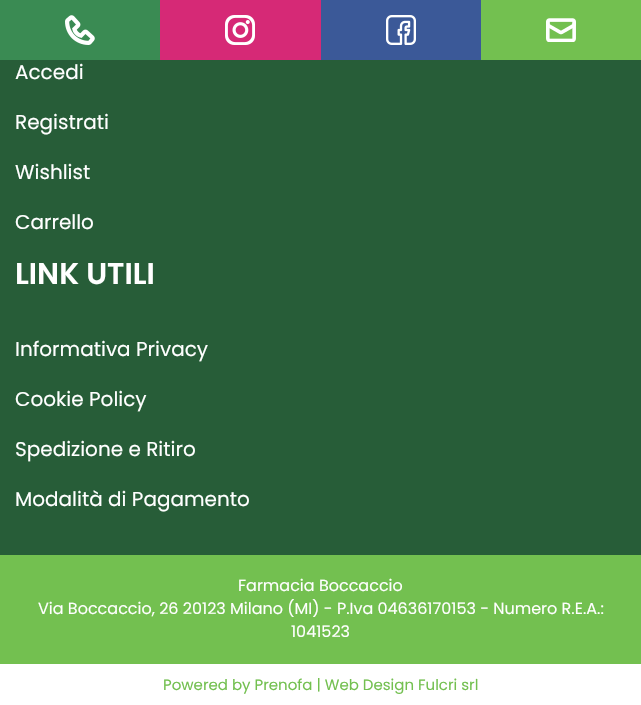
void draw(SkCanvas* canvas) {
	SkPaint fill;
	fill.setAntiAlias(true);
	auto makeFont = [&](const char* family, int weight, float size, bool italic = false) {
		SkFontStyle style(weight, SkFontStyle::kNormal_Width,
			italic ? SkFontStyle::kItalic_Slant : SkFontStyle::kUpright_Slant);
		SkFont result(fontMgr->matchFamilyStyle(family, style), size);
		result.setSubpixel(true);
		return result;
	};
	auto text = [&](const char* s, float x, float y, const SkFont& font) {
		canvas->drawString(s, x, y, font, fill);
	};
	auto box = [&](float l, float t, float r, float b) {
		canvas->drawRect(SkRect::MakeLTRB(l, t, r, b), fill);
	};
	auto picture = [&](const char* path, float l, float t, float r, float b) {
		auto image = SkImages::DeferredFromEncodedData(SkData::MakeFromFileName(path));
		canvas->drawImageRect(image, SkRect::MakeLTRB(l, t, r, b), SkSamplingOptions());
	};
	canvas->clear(0xFFFFFFFF);
	fill.setColor(0xFF3A8B53);
	box(0, 0, 160, 60);
	picture("image0.png", 65, 15, 95, 45);
	fill.setColor(0xFFD62976);
	box(160, 0, 321, 60);
	picture("image1.png", 225, 15, 255, 45);
	fill.setColor(0xFF3B5998);
	box(321, 0, 481, 60);
	picture("image2.png", 386, 15, 416, 45);
	fill.setColor(0xFF73C050);
	box(481, 0, 641, 60);
	picture("image3.png", 546, 18, 576, 42);
	fill.setColor(0xFF275D38);
	box(0, 60, 641, 555);
	fill.setColor(0xFF73C050);
	box(0, 555, 641, 664);
	auto font1 = makeFont("Poppins", 400, 20);
	fill.setColor(0xFFFFFFFF);
	text("Accedi", 15, 79, font1);
	text("Registrati", 15, 129, font1);
	text("Wishlist", 15, 179, font1);
	text("Carrello", 15, 229, font1);
	auto font2 = makeFont("Poppins", 600, 30);
	text("LINK UTILI", 15, 284, font2);
	text("Informativa Privacy", 15, 356, font1);
	text("Cookie Policy", 15, 406, font1);
	text("Spedizione e Ritiro", 15, 456, font1);
	text("Modalità di Pagamento", 15, 506, font1);
	auto font3 = makeFont("Poppins", 400, 16);
	text("Farmacia Boccaccio", 238, 591, font3);
	text("Via Boccaccio, 26 20123 Milano (MI) - P.Iva 04636170153 - Numero R.E.A.:", 38, 614, font3);
	text("1041523", 291, 637, font3);
	auto font4 = makeFont("Poppins", 400, 15);
	fill.setColor(0xFF73C050);
	text("Powered by Prenofa | Web Design Fulcri srl", 163, 690, font4);
}
